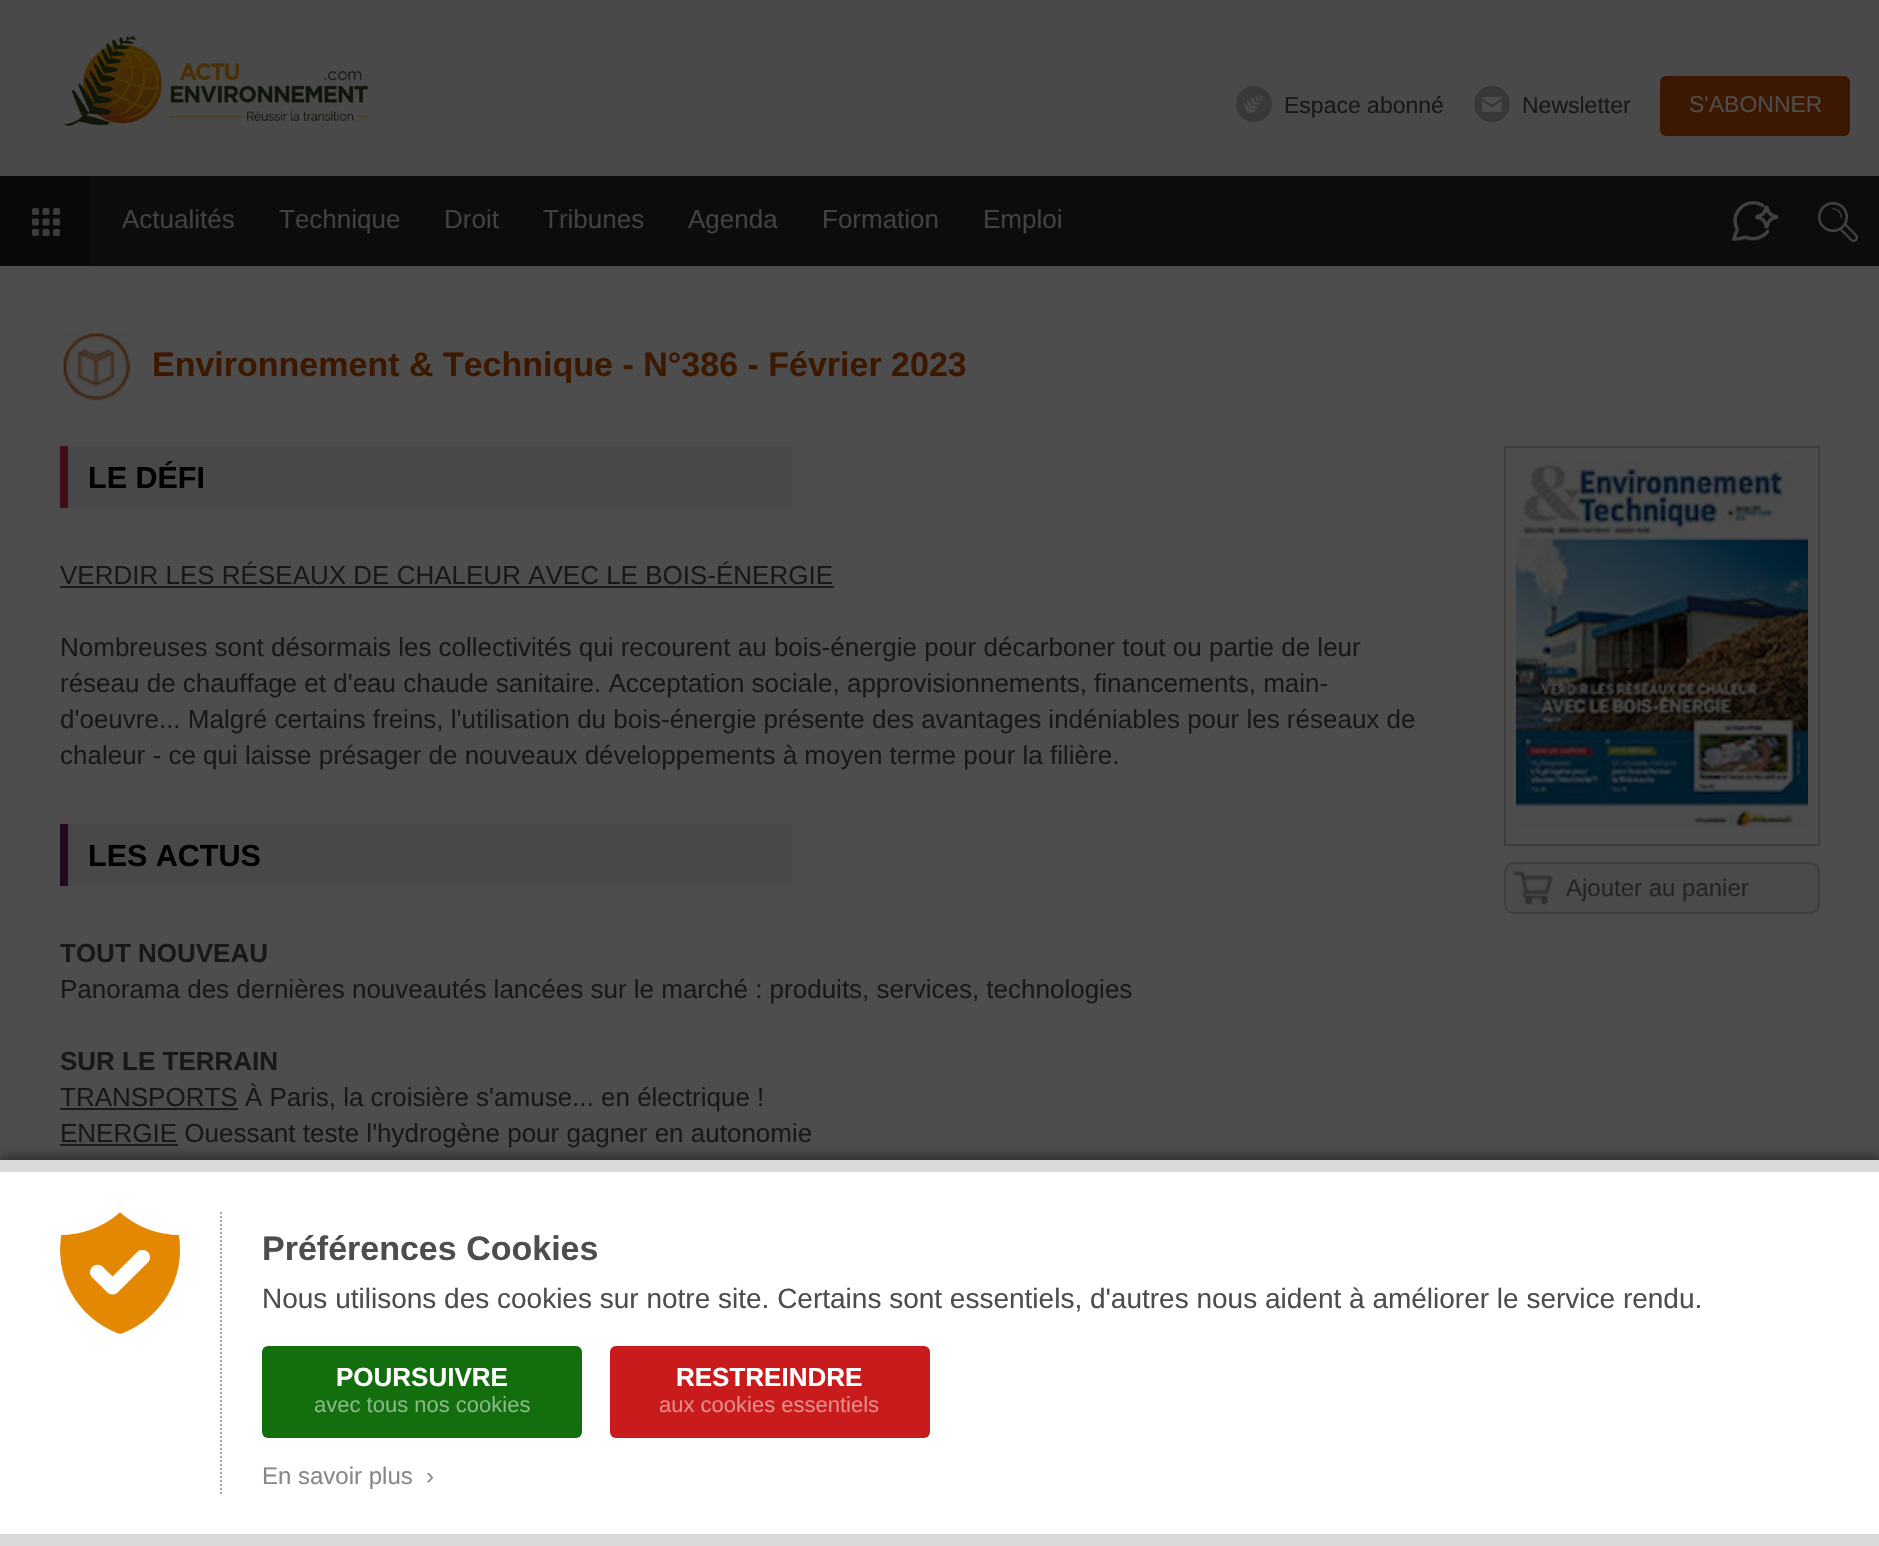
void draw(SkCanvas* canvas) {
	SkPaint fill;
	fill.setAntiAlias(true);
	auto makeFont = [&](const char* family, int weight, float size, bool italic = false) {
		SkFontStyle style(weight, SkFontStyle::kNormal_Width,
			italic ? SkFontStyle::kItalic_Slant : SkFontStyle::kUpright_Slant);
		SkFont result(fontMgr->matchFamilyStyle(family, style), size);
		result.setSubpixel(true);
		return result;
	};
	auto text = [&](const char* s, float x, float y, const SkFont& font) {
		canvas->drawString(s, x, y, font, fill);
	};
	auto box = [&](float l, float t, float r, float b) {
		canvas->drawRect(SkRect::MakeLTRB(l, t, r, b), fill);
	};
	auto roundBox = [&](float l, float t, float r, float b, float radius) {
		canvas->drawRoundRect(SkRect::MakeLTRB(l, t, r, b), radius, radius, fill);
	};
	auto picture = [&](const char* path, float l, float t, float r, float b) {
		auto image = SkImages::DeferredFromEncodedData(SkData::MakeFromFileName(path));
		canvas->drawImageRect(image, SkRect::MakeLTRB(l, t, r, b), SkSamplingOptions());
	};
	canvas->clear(0xFF4D4D4D);
	fill.setColor(0xFF494949);
	box(0, 0, 1879, 176);
	picture("image0.png", 64, 36, 368, 126);
	fill.setColor(0xFF383838);
	canvas->drawCircle(1254, 104, 18, fill);
	picture("image1.png", 1244, 95, 1264, 113);
	canvas->drawCircle(1492, 104, 18, fill);
	picture("image2.png", 1482, 97, 1502, 112);
	fill.setColor(0xFF3C1800);
	roundBox(1660, 76, 1850, 136, 6);
	fill.setColor(0xFF0C0C0C);
	box(90, 176, 1879, 266);
	fill.setColor(0xFF080808);
	box(0, 176, 90, 266);
	picture("image3.png", 32, 208, 60, 236);
	picture("image4.png", 1732, 201, 1778, 241);
	picture("image5.png", 1818, 202, 1858, 242);
	picture("image6.png", 63, 333, 131, 401);
	fill.setColor(0xFF484848);
	box(68, 446, 792, 508);
	fill.setColor(0xFF400E14);
	box(60, 446, 68, 508);
	fill.setColor(0xFF1A1A1A);
	box(60, 586, 834, 588);
	fill.setColor(0xFF484848);
	box(68, 824, 792, 886);
	fill.setColor(0xFF23081F);
	box(60, 824, 68, 886);
	fill.setColor(0xFF1A1A1A);
	box(60, 1108, 238, 1110);
	box(60, 1144, 178, 1146);
	fill.setStyle(SkPaint::kStroke_Style);
	fill.setStrokeWidth(2);
	fill.setColor(0xFF3E3E3E);
	canvas->drawRect(SkRect::MakeLTRB(1505, 447, 1819, 845), fill);
	picture("image7.png", 1516, 458, 1808, 829);
	fill.setStyle(SkPaint::kFill_Style);
	fill.setColor(0xFF4A4A4A);
	roundBox(1504, 862, 1820, 914, 10);
	picture("image8.png", 1513, 871, 1553, 905);
	fill.setStyle(SkPaint::kStroke_Style);
	fill.setColor(0xFF3E3E3E);
	canvas->drawRoundRect(SkRect::MakeLTRB(1505, 863, 1819, 913), 9, 9, fill);
	fill.setStyle(SkPaint::kFill_Style);
	fill.setColor(0x4D000000);
	fill.setMaskFilter(SkMaskFilter::MakeBlur(kNormal_SkBlurStyle, 4));
	canvas->drawRect(SkRect::MakeLTRB(0, 1154, 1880, 1540), fill);
	fill.setMaskFilter(nullptr);
	fill.setColor(0xFFFFFFFF);
	box(0, 1172, 1879, 1534);
	fill.setColor(0xFFDADADA);
	box(0, 1160, 1879, 1172);
	box(0, 1534, 1879, 1546);
	picture("image9.png", 60, 1212, 180, 1334);
	fill.setStyle(SkPaint::kStroke_Style);
	fill.setColor(0xFFA8A8A8);
	fill.setPathEffect(SkDashPathEffect::Make({{2, 2}}, 0));
	canvas->drawPath(SkPathBuilder().moveTo(221, 1212).lineTo(221, 1494).detach(), fill);
	fill.setPathEffect(nullptr);
	fill.setStyle(SkPaint::kFill_Style);
	fill.setColor(0xFF136F0E);
	roundBox(262, 1346, 582, 1438, 6);
	fill.setColor(0xFFC91B1B);
	roundBox(610, 1346, 930, 1438, 6);
	auto font1 = makeFont("Liberation Sans", 400, 23);
	fill.setColor(0xFF181818);
	text("Espace abonné", 1284, 113, font1);
	text("Newsletter", 1522, 113, font1);
	fill.setColor(0xFF4D4D4D);
	text("S'ABONNER", 1689, 112, font1);
	auto font2 = makeFont("Liberation Sans", 400, 26);
	fill.setColor(0xFF414141);
	text("Actualités", 122, 228, font2);
	text("Technique", 279, 228, font2);
	text("Droit", 444, 228, font2);
	text("Tribunes", 543, 228, font2);
	text("Agenda", 688, 228, font2);
	text("Formation", 822, 228, font2);
	text("Emploi", 983, 228, font2);
	auto font3 = makeFont("Liberation Sans", 700, 34);
	fill.setColor(0xFF3C1800);
	text("Environnement & Technique - N°386 - Février 2023", 152, 376, font3);
	auto font4 = makeFont("Liberation Sans", 700, 30.5f);
	fill.setColor(0xFF000000);
	text("LE DÉFI", 88, 488, font4);
	fill.setColor(0xFF181818);
	text("VERDIR LES RÉSEAUX DE CHALEUR AVEC LE BOIS-ÉNERGIE", 60, 584, font2);
	text("Nombreuses sont désormais les collectivités qui recourent au bois-énergie pour décarboner tout ou partie de leur", 60, 656, font2);
	text("réseau de chauffage et d'eau chaude sanitaire. Acceptation sociale, approvisionnements, financements, main-", 60, 692, font2);
	text("d'oeuvre... Malgré certains freins, l'utilisation du bois-énergie présente des avantages indéniables pour les réseaux de", 60, 728, font2);
	text("chaleur - ce qui laisse présager de nouveaux développements à moyen terme pour la filière.", 60, 764, font2);
	fill.setColor(0xFF000000);
	text("LES ACTUS", 88, 866, font4);
	auto font5 = makeFont("Liberation Sans", 700, 26);
	fill.setColor(0xFF181818);
	text("TOUT NOUVEAU", 60, 962, font5);
	text("Panorama des dernières nouveautés lancées sur le marché : produits, services, technologies", 60, 998, font2);
	text("SUR LE TERRAIN", 60, 1070, font5);
	text("TRANSPORTS À Paris, la croisière s'amuse... en électrique !", 60, 1106, font2);
	text("ENERGIE Ouessant teste l'hydrogène pour gagner en autonomie", 60, 1142, font2);
	auto font6 = makeFont("Liberation Sans", 400, 24);
	fill.setColor(0xFF242424);
	text("Ajouter au panier", 1566, 896, font6);
	fill.setColor(0xFF4D4D4D);
	text("Préférences Cookies", 262, 1260, font3);
	auto font7 = makeFont("Liberation Sans", 400, 28);
	text("Nous utilisons des cookies sur notre site. Certains sont essentiels, d'autres nous aident à améliorer le service rendu.", 262, 1308, font7);
	fill.setColor(0xFFFFFFFF);
	text("POURSUIVRE", 336, 1386, font5);
	auto font8 = makeFont("Liberation Sans", 400, 22);
	fill.setColor(0xFF89B787);
	text("avec tous nos cookies", 314, 1412, font8);
	fill.setColor(0xFFFFFFFF);
	text("RESTREINDRE", 676, 1386, font5);
	fill.setColor(0xFFE48D8D);
	text("aux cookies essentiels", 659, 1412, font8);
	fill.setColor(0xFF888888);
	text("En savoir plus  ›", 262, 1484, font6);
}
